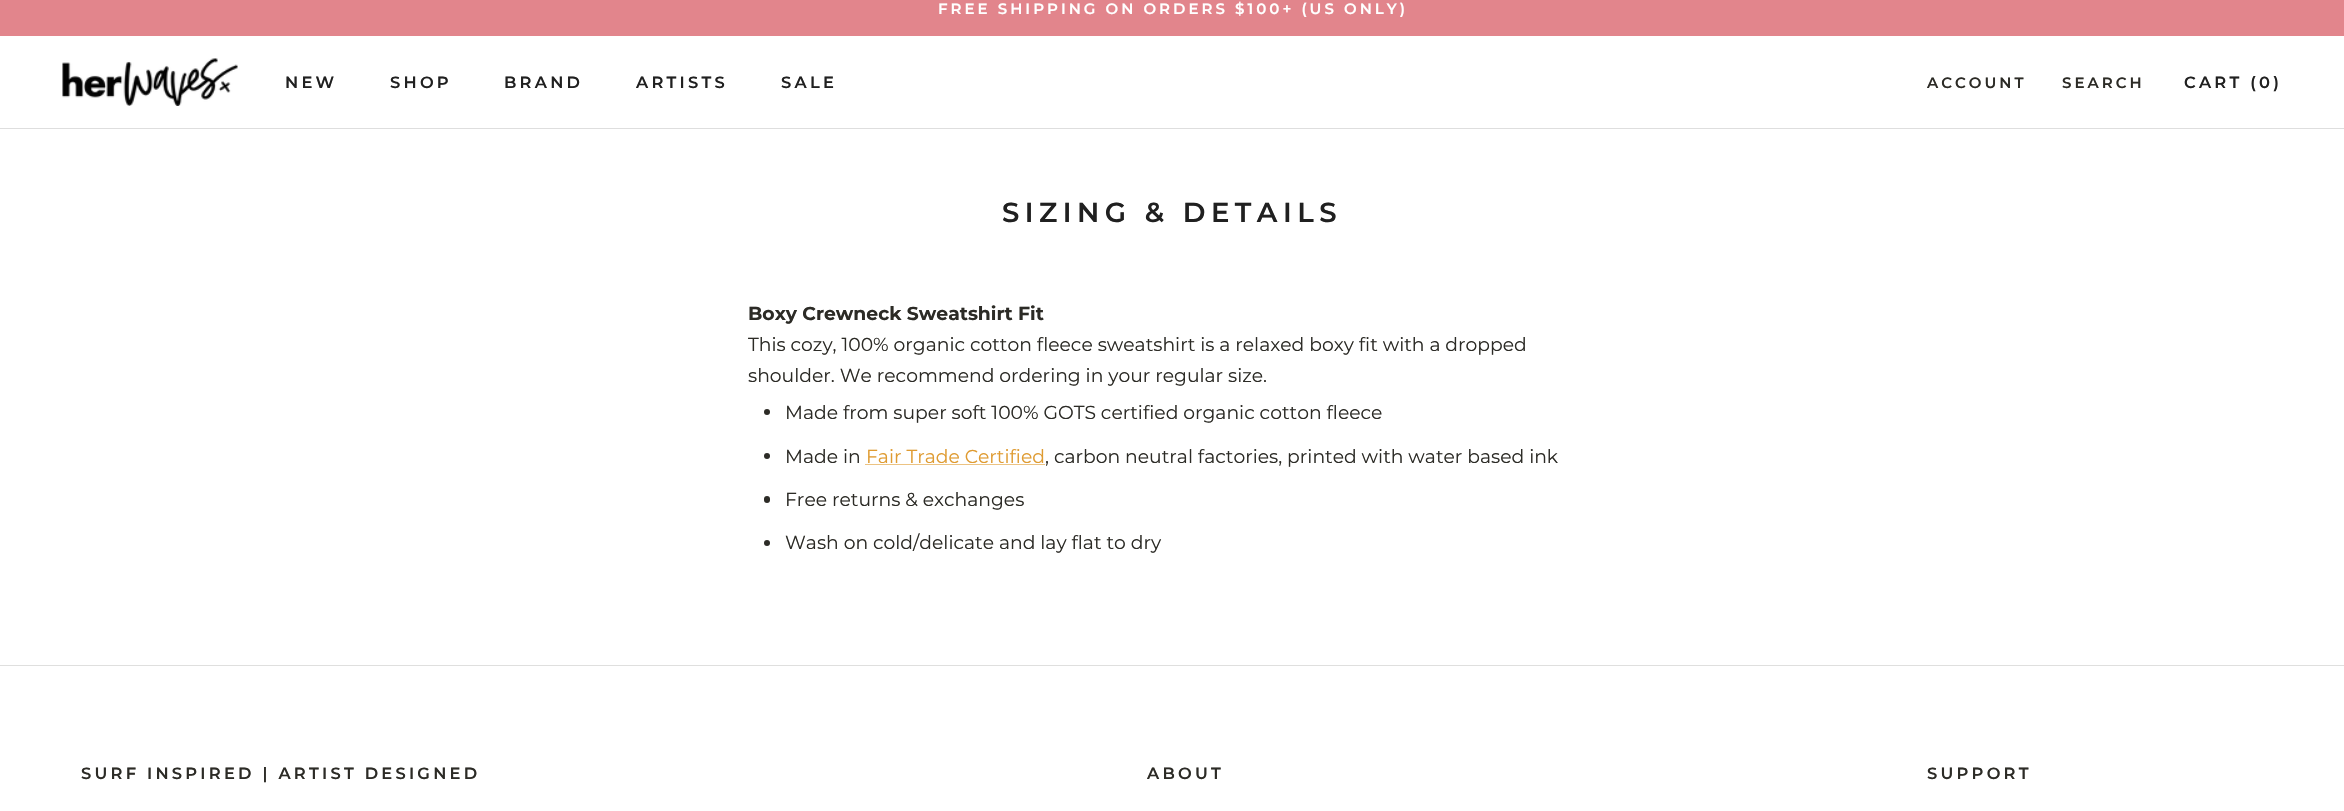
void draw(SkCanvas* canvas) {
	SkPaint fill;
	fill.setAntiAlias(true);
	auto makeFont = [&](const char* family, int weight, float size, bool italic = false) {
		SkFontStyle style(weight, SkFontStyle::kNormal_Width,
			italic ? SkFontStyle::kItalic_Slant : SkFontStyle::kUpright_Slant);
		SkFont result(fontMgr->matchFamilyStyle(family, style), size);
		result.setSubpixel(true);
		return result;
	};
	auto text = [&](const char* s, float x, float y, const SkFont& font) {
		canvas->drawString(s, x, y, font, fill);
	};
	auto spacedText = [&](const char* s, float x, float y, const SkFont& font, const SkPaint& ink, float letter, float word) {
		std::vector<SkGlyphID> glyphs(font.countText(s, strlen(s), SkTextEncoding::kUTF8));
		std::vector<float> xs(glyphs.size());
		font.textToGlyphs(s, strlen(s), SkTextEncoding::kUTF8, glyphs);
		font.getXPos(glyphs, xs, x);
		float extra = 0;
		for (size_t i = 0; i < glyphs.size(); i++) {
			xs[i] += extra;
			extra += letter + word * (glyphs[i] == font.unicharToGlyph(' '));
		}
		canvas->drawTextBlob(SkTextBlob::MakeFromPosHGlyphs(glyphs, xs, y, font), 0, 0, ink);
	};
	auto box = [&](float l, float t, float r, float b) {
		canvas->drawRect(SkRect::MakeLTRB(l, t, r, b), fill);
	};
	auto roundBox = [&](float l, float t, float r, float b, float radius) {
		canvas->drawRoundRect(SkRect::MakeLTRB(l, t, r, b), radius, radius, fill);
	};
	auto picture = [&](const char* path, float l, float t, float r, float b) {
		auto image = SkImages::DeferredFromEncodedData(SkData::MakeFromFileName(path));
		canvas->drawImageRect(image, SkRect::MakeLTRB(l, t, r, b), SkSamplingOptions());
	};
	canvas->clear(0xFFFFFFFF);
	fill.setColor(0xFFE2858C);
	box(0, 0, 2344, 36);
	fill.setColor(0xFFDEDEDE);
	box(0, 128, 2344, 129);
	picture("image0.png", 62, 58, 238, 106);
	fill.setColor(0xFF2C2B26);
	canvas->drawCircle(767, 412, 3, fill);
	canvas->drawCircle(767, 456, 3, fill);
	fill.setColor(0xFFECC383);
	box(865, 464, 1045, 465);
	fill.setColor(0xFF2C2B26);
	roundBox(764, 496, 770, 503, 3);
	canvas->drawCircle(767, 543, 3, fill);
	fill.setColor(0xFFDFDFDE);
	box(0, 665, 2344, 666);
	auto font1 = makeFont("Montserrat", 600, 15);
	fill.setColor(0xFFFFFFFF);
	spacedText("FREE SHIPPING ON ORDERS $100+ (US ONLY)", 938, 14, font1, fill, 3, 0);
	auto font2 = makeFont("Montserrat", 600, 16.25f);
	fill.setColor(0xFF202020);
	spacedText("NEW", 285, 88, font2, fill, 3.25f, 0);
	spacedText("SHOP", 390, 88, font2, fill, 3.25f, 0);
	spacedText("BRAND", 504, 88, font2, fill, 3.25f, 0);
	spacedText("ARTISTS", 636, 88, font2, fill, 3.25f, 0);
	spacedText("SALE", 781, 88, font2, fill, 3.25f, 0);
	fill.setColor(0xFF2C2B26);
	spacedText("ACCOUNT", 1927, 88, font1, fill, 3, 0);
	spacedText("SEARCH", 2062, 88, font1, fill, 3, 0);
	fill.setColor(0xFF202020);
	spacedText("CART (0)", 2184, 88, font2, fill, 3.25f, 0);
	auto font3 = makeFont("Montserrat", 600, 27.5f);
	spacedText("SIZING & DETAILS", 1002, 222, font3, fill, 5.5f, 0);
	auto font4 = makeFont("Montserrat", 700, 18.75f);
	fill.setColor(0xFF2C2B26);
	text("Boxy Crewneck Sweatshirt Fit", 748, 320, font4);
	auto font5 = makeFont("Montserrat", 400, 18.75f);
	text("This cozy, 100% organic cotton fleece sweatshirt is a relaxed boxy fit with a dropped", 748, 351, font5);
	text("shoulder. We recommend ordering in your regular size.", 748, 382, font5);
	text("Made from super soft 100% GOTS certified organic cotton fleece", 785, 419, font5);
	text("Made in", 785, 463, font5);
	fill.setColor(0xFFDF9B31);
	text("Fair Trade Certified", 866, 463, font5);
	fill.setColor(0xFF2C2B26);
	text(", carbon neutral factories, printed with water based ink", 1045, 463, font5);
	text("Free returns & exchanges", 785, 506, font5);
	text("Wash on cold/delicate and lay flat to dry", 785, 549, font5);
	spacedText("SURF INSPIRED | ARTIST DESIGNED", 81, 779, font2, fill, 3.25f, 0);
	spacedText("ABOUT", 1147, 779, font2, fill, 3.25f, 0);
	spacedText("SUPPORT", 1927, 779, font2, fill, 3.25f, 0);
}
